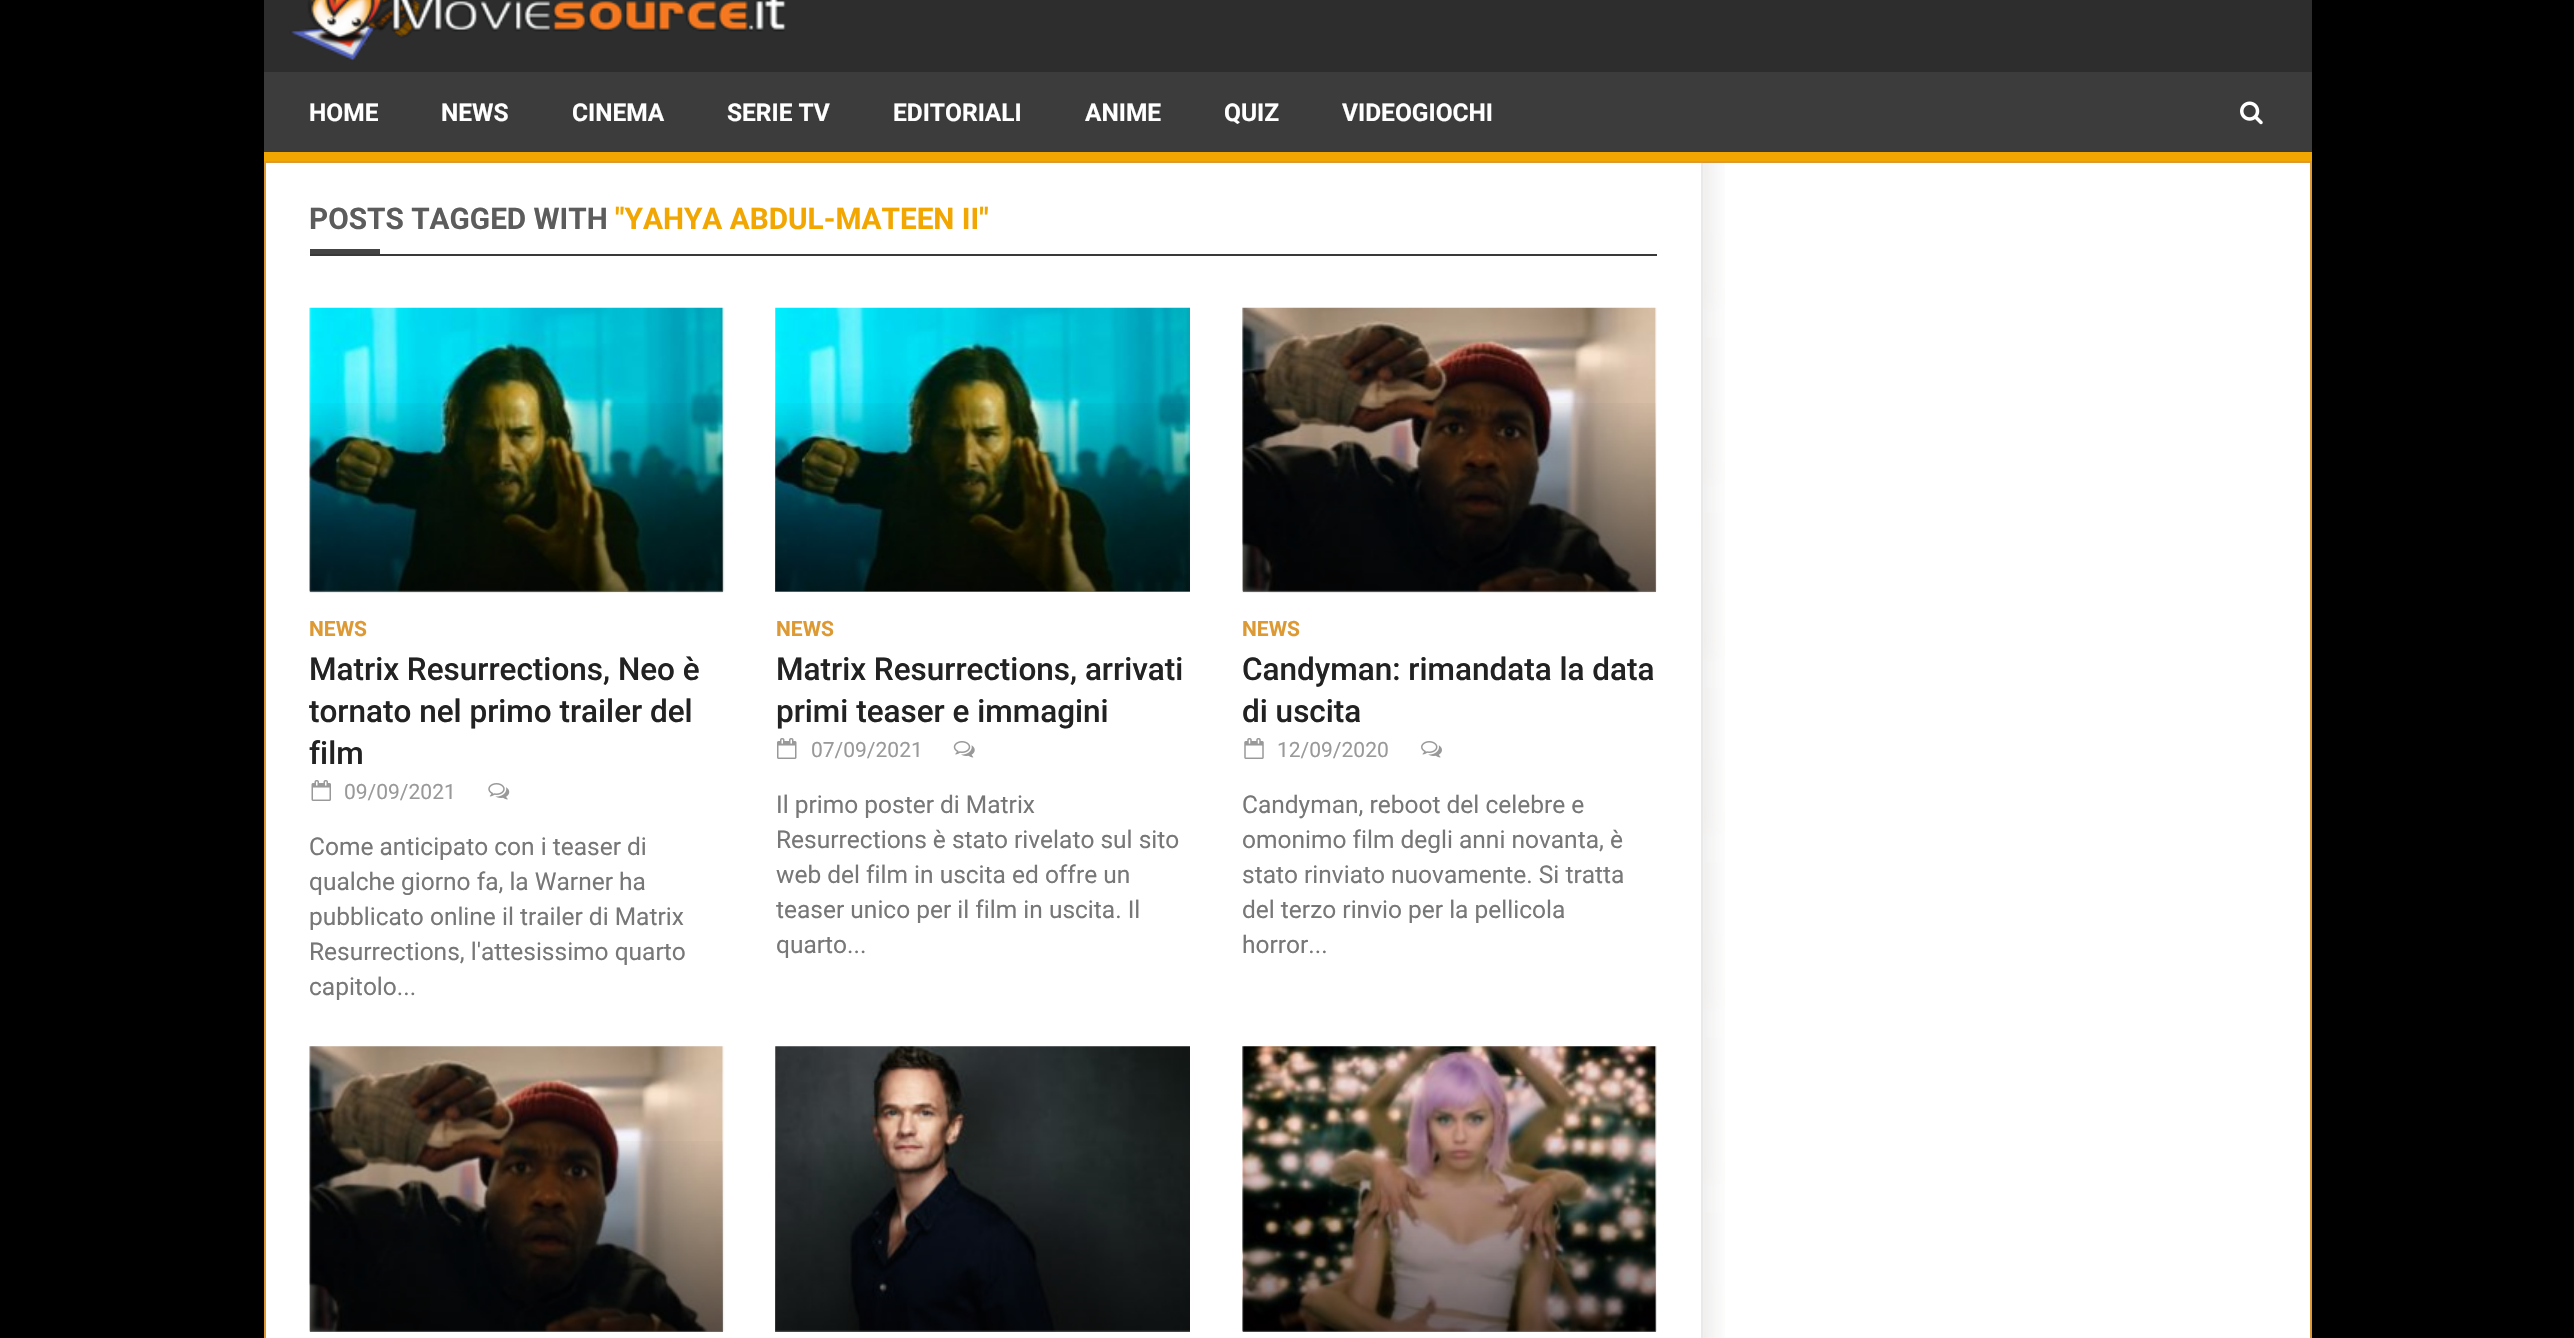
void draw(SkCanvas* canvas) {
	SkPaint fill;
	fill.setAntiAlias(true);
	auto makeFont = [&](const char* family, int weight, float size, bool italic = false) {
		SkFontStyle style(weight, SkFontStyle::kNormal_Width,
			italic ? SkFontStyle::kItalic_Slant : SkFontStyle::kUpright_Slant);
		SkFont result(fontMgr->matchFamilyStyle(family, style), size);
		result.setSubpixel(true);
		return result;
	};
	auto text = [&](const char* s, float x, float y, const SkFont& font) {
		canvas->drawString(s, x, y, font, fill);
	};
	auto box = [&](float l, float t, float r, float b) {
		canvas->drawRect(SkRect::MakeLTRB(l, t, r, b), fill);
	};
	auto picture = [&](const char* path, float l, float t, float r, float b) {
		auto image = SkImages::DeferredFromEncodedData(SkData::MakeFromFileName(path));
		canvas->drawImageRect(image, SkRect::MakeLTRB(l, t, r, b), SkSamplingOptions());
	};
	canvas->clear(0xFF000000);
	fill.setColor(0xFF2D2D2D);
	box(264, 0, 2312, 72);
	picture("image0.png", 289, 0, 786, 61);
	fill.setColor(0xFF3C3C3C);
	box(264, 72, 2312, 152);
	fill.setColor(0xFFF1A602);
	box(264, 152, 2312, 161);
	picture("image1.png", 2240, 101, 2263, 125);
	fill.setColor(0xFFFFFFFF);
	canvas->drawRect(SkRect::MakeLTRB(265, 162, 2311, 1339), fill);
	fill.setStyle(SkPaint::kStroke_Style);
	fill.setStrokeWidth(2);
	fill.setColor(0xFFDD9933);
	canvas->drawRect(SkRect::MakeLTRB(265, 162, 2311, 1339), fill);
	fill.setStyle(SkPaint::kFill_Style);
	fill.setColor(0xFF393939);
	box(310, 254, 1657, 256);
	fill.setColor(0xFF444444);
	box(310, 249, 380, 254);
	picture("image2.png", 309, 307, 725, 593);
	{
		const SkColor colors[] = {0x00000000, 0x80000000};
		const float stops[] = {0, 1};
		const SkPoint ends[] = {{516, 394}, {516, 592}};
		fill.setShader(SkGradientShader::MakeLinear(ends, colors, stops, 2, SkTileMode::kClamp));
		fill.setAlpha(255);
	}
	box(310, 403, 723, 592);
	picture("image3.png", 311, 780, 331, 801);
	picture("image4.png", 488, 783, 510, 800);
	picture("image5.png", 775, 307, 1190, 592);
	{
		const SkColor colors[] = {0x00000000, 0x80000000};
		const float stops[] = {0, 1};
		const SkPoint ends[] = {{983, 394}, {983, 592}};
		fill.setShader(SkGradientShader::MakeLinear(ends, colors, stops, 2, SkTileMode::kClamp));
		fill.setAlpha(255);
	}
	box(775, 403, 1190, 592);
	picture("image6.png", 777, 738, 797, 759);
	picture("image7.png", 953, 741, 975, 758);
	picture("image8.png", 1242, 307, 1657, 593);
	{
		const SkColor colors[] = {0x00000000, 0x80000000};
		const float stops[] = {0, 1};
		const SkPoint ends[] = {{1449, 394}, {1449, 592}};
		fill.setShader(SkGradientShader::MakeLinear(ends, colors, stops, 2, SkTileMode::kClamp));
		fill.setAlpha(255);
	}
	box(1243, 403, 1656, 592);
	picture("image9.png", 1244, 738, 1264, 759);
	picture("image10.png", 1421, 741, 1442, 758);
	picture("image11.png", 309, 1046, 725, 1332);
	{
		const SkColor colors[] = {0x00000000, 0x80000000};
		const float stops[] = {0, 1};
		const SkPoint ends[] = {{516, 1132}, {516, 1332}};
		fill.setShader(SkGradientShader::MakeLinear(ends, colors, stops, 2, SkTileMode::kClamp));
		fill.setAlpha(255);
	}
	box(310, 1141, 723, 1332);
	picture("image12.png", 775, 1046, 1190, 1332);
	{
		const SkColor colors[] = {0x00000000, 0x80000000};
		const float stops[] = {0, 1};
		const SkPoint ends[] = {{983, 1132}, {983, 1332}};
		fill.setShader(SkGradientShader::MakeLinear(ends, colors, stops, 2, SkTileMode::kClamp));
		fill.setAlpha(255);
	}
	box(775, 1141, 1190, 1332);
	picture("image13.png", 1242, 1046, 1657, 1332);
	{
		const SkColor colors[] = {0x00000000, 0x80000000};
		const float stops[] = {0, 1};
		const SkPoint ends[] = {{1449, 1132}, {1449, 1332}};
		fill.setShader(SkGradientShader::MakeLinear(ends, colors, stops, 2, SkTileMode::kClamp));
		fill.setAlpha(255);
	}
	box(1243, 1141, 1656, 1332);
	picture("image14.png", 1703, 162, 1725, 1338);
	fill.setShader(nullptr);
	fill.setColor(0xFFE9E9E9);
	box(1701, 163, 1703, 1338);
	auto font1 = makeFont("Roboto", 700, 24.5f);
	fill.setColor(0xFFFFFFFF);
	text("HOME", 309, 121, font1);
	text("NEWS", 441, 121, font1);
	text("CINEMA", 572, 121, font1);
	text("SERIE TV", 727, 121, font1);
	text("EDITORIALI", 893, 121, font1);
	text("ANIME", 1085, 121, font1);
	text("QUIZ", 1224, 121, font1);
	text("VIDEOGIOCHI", 1342, 121, font1);
	auto font2 = makeFont("Roboto", 700, 29.75f);
	fill.setColor(0xFF5C5C5C);
	text("POSTS TAGGED WITH", 309, 229, font2);
	fill.setColor(0xFFF1A602);
	text("\"YAHYA ABDUL-MATEEN II\"", 615, 229, font2);
	auto font3 = makeFont("Roboto", 700, 21);
	fill.setColor(0xFFDD9933);
	text("NEWS", 309, 636, font3);
	auto font4 = makeFont("Roboto", 500, 31.5f);
	fill.setColor(0xFF222222);
	text("Matrix Resurrections, Neo è", 309, 680, font4);
	text("tornato nel primo trailer del", 309, 722, font4);
	text("film", 309, 764, font4);
	auto font5 = makeFont("Roboto", 400, 21);
	fill.setColor(0xFF999999);
	text("09/09/2021", 344, 799, font5);
	auto font6 = makeFont("Roboto", 400, 24.5f);
	fill.setColor(0xFF777777);
	text("Come anticipato con i teaser di", 309, 855, font6);
	text("qualche giorno fa, la Warner ha", 309, 890, font6);
	text("pubblicato online il trailer di Matrix", 309, 925, font6);
	text("Resurrections, l'attesissimo quarto", 309, 960, font6);
	text("capitolo...", 309, 995, font6);
	fill.setColor(0xFFDD9933);
	text("NEWS", 776, 636, font3);
	fill.setColor(0xFF222222);
	text("Matrix Resurrections, arrivati", 776, 680, font4);
	text("primi teaser e immagini", 776, 722, font4);
	fill.setColor(0xFF999999);
	text("07/09/2021", 811, 757, font5);
	fill.setColor(0xFF777777);
	text("Il primo poster di Matrix", 776, 813, font6);
	text("Resurrections è stato rivelato sul sito", 776, 848, font6);
	text("web del film in uscita ed offre un", 776, 883, font6);
	text("teaser unico per il film in uscita. Il", 776, 918, font6);
	text("quarto...", 776, 953, font6);
	fill.setColor(0xFFDD9933);
	text("NEWS", 1242, 636, font3);
	fill.setColor(0xFF222222);
	text("Candyman: rimandata la data", 1242, 680, font4);
	text("di uscita", 1242, 722, font4);
	fill.setColor(0xFF999999);
	text("12/09/2020", 1277, 757, font5);
	fill.setColor(0xFF777777);
	text("Candyman, reboot del celebre e", 1242, 813, font6);
	text("omonimo film degli anni novanta, è", 1242, 848, font6);
	text("stato rinviato nuovamente. Si tratta", 1242, 883, font6);
	text("del terzo rinvio per la pellicola", 1242, 918, font6);
	text("horror...", 1242, 953, font6);
}
